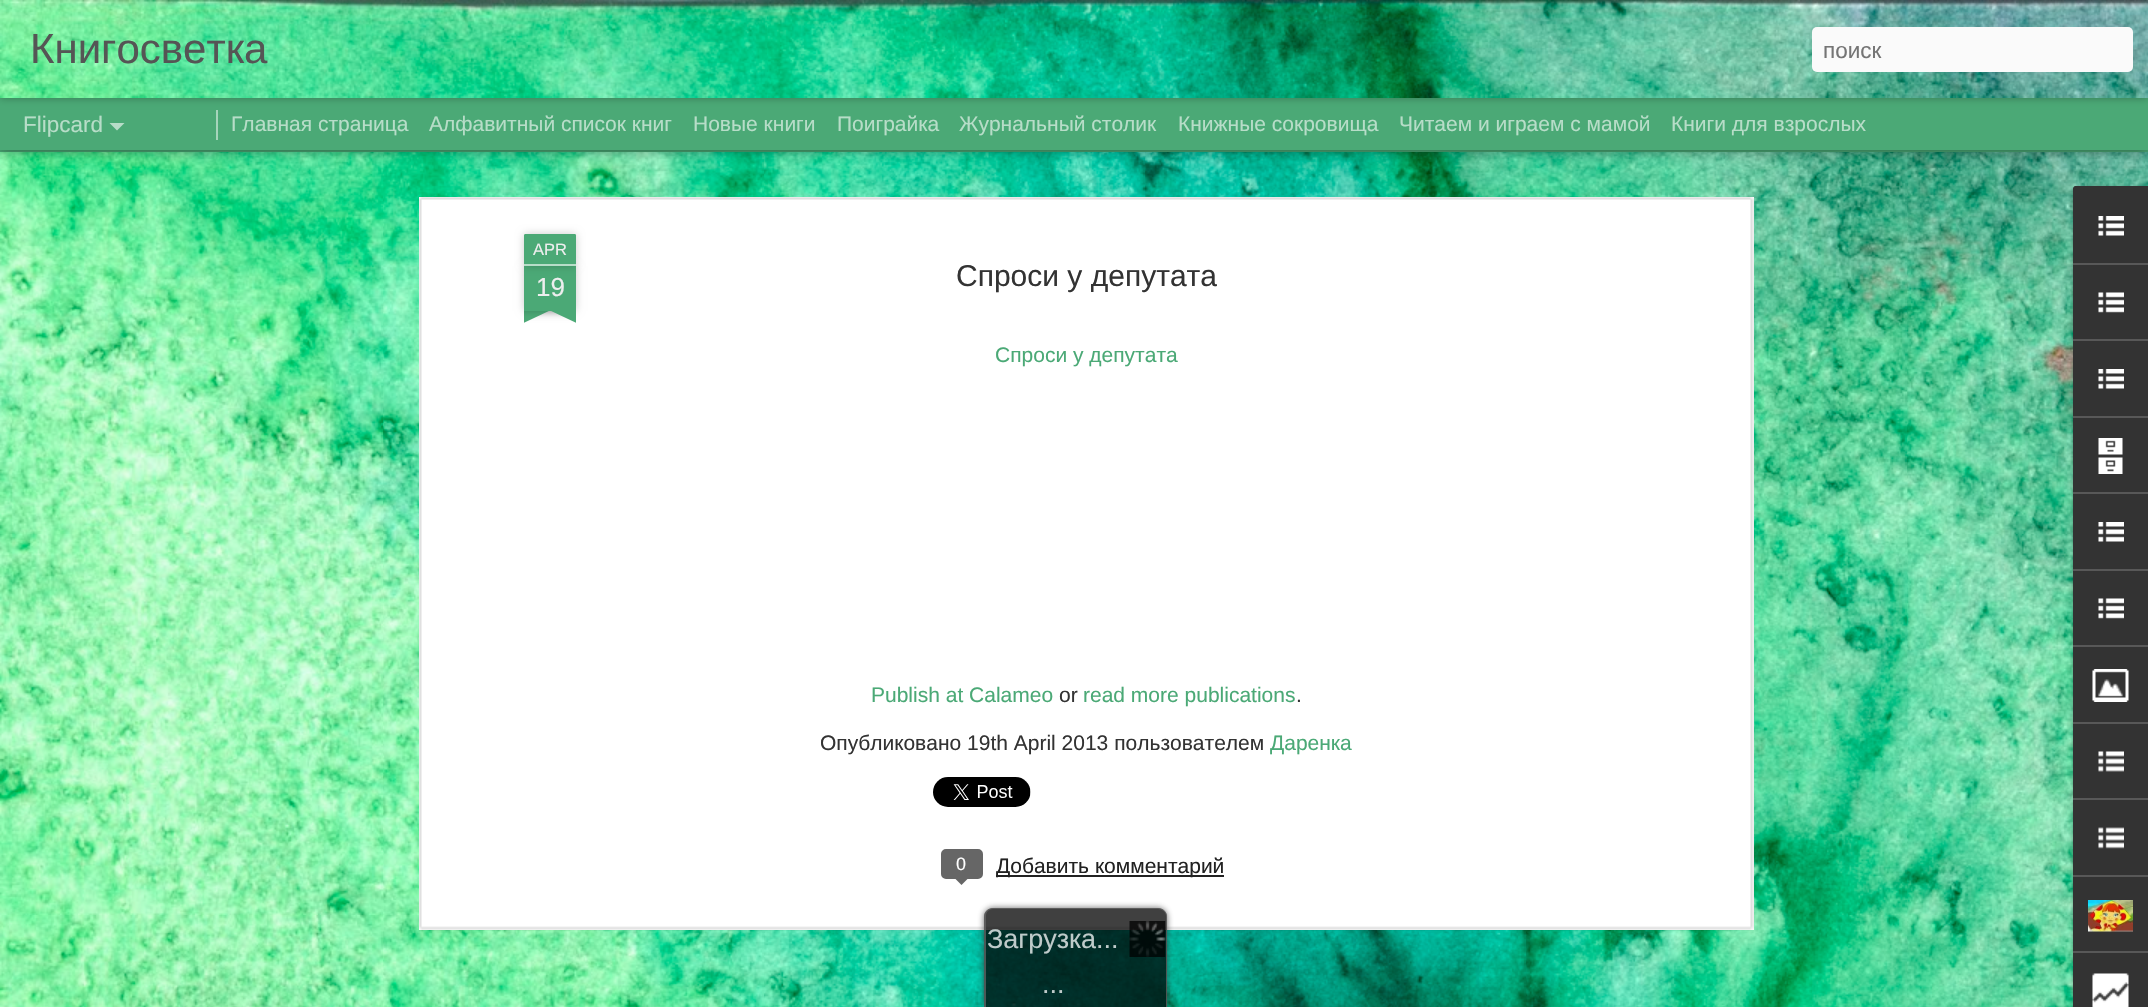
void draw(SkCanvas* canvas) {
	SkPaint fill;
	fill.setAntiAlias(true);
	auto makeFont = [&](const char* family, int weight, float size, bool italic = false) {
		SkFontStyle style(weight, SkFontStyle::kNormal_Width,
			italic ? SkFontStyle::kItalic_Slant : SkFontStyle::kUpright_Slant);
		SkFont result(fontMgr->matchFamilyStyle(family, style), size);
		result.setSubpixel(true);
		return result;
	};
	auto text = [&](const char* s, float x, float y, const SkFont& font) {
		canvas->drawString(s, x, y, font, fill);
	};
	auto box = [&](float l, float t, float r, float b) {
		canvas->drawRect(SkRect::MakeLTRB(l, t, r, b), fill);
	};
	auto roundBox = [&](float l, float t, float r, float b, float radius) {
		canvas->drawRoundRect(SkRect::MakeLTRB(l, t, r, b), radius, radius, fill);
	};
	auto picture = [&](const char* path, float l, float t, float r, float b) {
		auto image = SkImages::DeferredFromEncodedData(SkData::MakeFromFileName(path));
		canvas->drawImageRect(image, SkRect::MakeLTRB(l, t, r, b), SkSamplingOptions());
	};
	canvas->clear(0xFF4BA976);
	picture("image1.png", 0, 152, 2148, 1007);
	fill.setColor(0x80000000);
	fill.setMaskFilter(SkMaskFilter::MakeBlur(kNormal_SkBlurStyle, 6));
	canvas->drawRect(SkRect::MakeLTRB(0, 98, 2148, 150), fill);
	fill.setMaskFilter(nullptr);
	fill.setColor(0xFF4BA976);
	box(0, 98, 2148, 150);
	fill.setColor(0xFFA5D4BB);
	box(216, 110, 218, 140);
	fill.setColor(0x4D000000);
	fill.setMaskFilter(SkMaskFilter::MakeBlur(kNormal_SkBlurStyle, 4));
	canvas->drawRect(SkRect::MakeLTRB(0, 0, 2148, 98), fill);
	fill.setMaskFilter(nullptr);
	picture("image0.png", 0, 0, 2148, 98);
	fill.setColor(0xFFFAFAFA);
	roundBox(1812, 27, 2133, 72, 5);
	fill.setColor(0xFFB7DDC8);
	canvas->drawPath(SkPathBuilder().moveTo(109.5f, 123).lineTo(124.5f, 123).lineTo(117, 130.5f).close().detach(), fill);
	fill.setColor(0xFFFFFFFF);
	box(419, 197, 1754, 930);
	picture("image2.png", 419, 197, 1754, 931);
	fill.setColor(0x33000000);
	fill.setMaskFilter(SkMaskFilter::MakeBlur(kNormal_SkBlurStyle, 4));
	canvas->drawRect(SkRect::MakeLTRB(524, 266, 576, 311), fill);
	fill.setMaskFilter(nullptr);
	fill.setColor(0xFF4BA976);
	box(524, 266, 576, 311);
	fill.setColor(0x33000000);
	fill.setMaskFilter(SkMaskFilter::MakeBlur(kNormal_SkBlurStyle, 4));
	canvas->drawRoundRect(SkRect::MakeLTRB(524, 234, 576, 266), 1.5f, 1.5f, fill);
	fill.setMaskFilter(nullptr);
	fill.setColor(0xFF4BA976);
	canvas->drawPath(SkPathBuilder().moveTo(525.5f, 234).lineTo(574.5f, 234).cubicTo(575.5f, 234, 576, 234.5f, 576, 235.5f).lineTo(576, 266).lineTo(524, 266).lineTo(524, 235.5f).cubicTo(524, 234.5f, 524.5f, 234, 525.5f, 234).close().detach(), fill);
	fill.setColor(0xFFB7DDC8);
	box(524, 264, 576, 266);
	canvas->save();
	canvas->clipRect(SkRect::MakeLTRB(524, 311, 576, 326));
	fill.setColor(0x33000000);
	fill.setMaskFilter(SkMaskFilter::MakeBlur(kNormal_SkBlurStyle, 4));
	canvas->drawRect(SkRect::MakeLTRB(510, 296, 585, 311), fill);
	fill.setMaskFilter(nullptr);
	canvas->restore();
	canvas->save();
	canvas->clipRect(SkRect::MakeLTRB(524, 311, 576, 326));
	fill.setColor(0xFF4BA976);
	canvas->drawPath(SkPathBuilder().moveTo(510, 312).lineTo(578, 280).lineTo(585, 294).lineTo(517, 326).close().detach(), fill);
	canvas->restore();
	canvas->save();
	canvas->clipRect(SkRect::MakeLTRB(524, 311, 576, 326));
	fill.setColor(0x33000000);
	fill.setMaskFilter(SkMaskFilter::MakeBlur(kNormal_SkBlurStyle, 4));
	canvas->drawRect(SkRect::MakeLTRB(515, 296, 590, 311), fill);
	fill.setMaskFilter(nullptr);
	canvas->restore();
	canvas->save();
	canvas->clipRect(SkRect::MakeLTRB(524, 311, 576, 326));
	fill.setColor(0xFF4BA976);
	canvas->drawPath(SkPathBuilder().moveTo(521, 280).lineTo(589, 312).lineTo(583, 326).lineTo(515, 294).close().detach(), fill);
	canvas->restore();
	picture("image3.png", 933, 777, 1031, 807);
	fill.setColor(0xFF666666);
	canvas->drawRoundRect(SkRect::MakeLTRB(942, 850, 982, 878), 4, 4, fill);
	fill.setStyle(SkPaint::kStroke_Style);
	fill.setStrokeWidth(2);
	canvas->drawRoundRect(SkRect::MakeLTRB(942, 850, 982, 878), 4, 4, fill);
	fill.setStyle(SkPaint::kFill_Style);
	canvas->drawPath(SkPathBuilder().moveTo(954, 877.5f).lineTo(969, 877.5f).lineTo(961.5f, 885).close().detach(), fill);
	fill.setColor(0xFF222222);
	box(996, 875, 1224, 877);
	fill.setColor(0x4D000000);
	fill.setMaskFilter(SkMaskFilter::MakeBlur(kNormal_SkBlurStyle, 2));
	canvas->drawRoundRect(SkRect::MakeLTRB(2073, 188, 2148, 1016), 3, 3, fill);
	fill.setMaskFilter(nullptr);
	fill.setColor(0xFF333333);
	canvas->drawPath(SkPathBuilder().moveTo(2076, 186).lineTo(2148, 186).lineTo(2148, 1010).lineTo(2076, 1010).cubicTo(2074.5f, 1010, 2073, 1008.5f, 2073, 1007).lineTo(2073, 189).cubicTo(2073, 187.5f, 2074.5f, 186, 2076, 186).close().detach(), fill);
	canvas->drawPath(SkPathBuilder().moveTo(2076, 186).lineTo(2148, 186).lineTo(2148, 263).lineTo(2073, 263).lineTo(2073, 189).cubicTo(2073, 187.5f, 2074.5f, 186, 2076, 186).close().detach(), fill);
	picture("image4.png", 2098, 216, 2124, 236);
	fill.setColor(0xFF585858);
	box(2073, 263, 2148, 265);
	picture("image5.png", 2098, 292, 2124, 313);
	box(2073, 339, 2148, 341);
	picture("image4.png", 2098, 369, 2124, 389);
	box(2073, 416, 2148, 418);
	picture("image6.png", 2098, 438, 2123, 474);
	box(2073, 492, 2148, 494);
	picture("image4.png", 2098, 522, 2124, 542);
	box(2073, 569, 2148, 571);
	picture("image5.png", 2098, 598, 2124, 619);
	box(2073, 645, 2148, 647);
	picture("image7.png", 2092, 669, 2129, 702);
	box(2073, 722, 2148, 724);
	picture("image8.png", 2098, 751, 2124, 772);
	box(2073, 798, 2148, 800);
	picture("image9.png", 2098, 827, 2124, 849);
	box(2073, 875, 2148, 877);
	picture("image10.png", 2088, 900, 2133, 932);
	box(2073, 951, 2148, 953);
	picture("image11.png", 2092, 973, 2129, 1007);
	canvas->save();
	canvas->clipPath(SkPathBuilder(SkPathFillType::kEvenOdd).moveTo(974, 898).lineTo(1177, 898).lineTo(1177, 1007).lineTo(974, 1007).close().moveTo(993, 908).lineTo(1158, 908).cubicTo(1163, 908, 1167, 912, 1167, 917).lineTo(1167, 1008).lineTo(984, 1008).lineTo(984, 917).cubicTo(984, 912, 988, 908, 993, 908).close().detach(), true);
	fill.setColor(0xBF333333);
	fill.setMaskFilter(SkMaskFilter::MakeBlur(kNormal_SkBlurStyle, 3));
	canvas->drawRoundRect(SkRect::MakeLTRB(984, 908, 1167, 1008), 9, 9, fill);
	fill.setMaskFilter(nullptr);
	canvas->restore();
	fill.setColor(0xBF000000);
	canvas->drawPath(SkPathBuilder().moveTo(993, 908).lineTo(1158, 908).cubicTo(1163, 908, 1167, 912, 1167, 917).lineTo(1167, 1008).lineTo(984, 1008).lineTo(984, 917).cubicTo(984, 912, 988, 908, 993, 908).close().detach(), fill);
	fill.setColor(0xBF666666);
	canvas->drawPath(SkPathBuilder(SkPathFillType::kEvenOdd).moveTo(993, 908).lineTo(1158, 908).cubicTo(1163, 908, 1167, 912, 1167, 916).lineTo(1167, 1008).lineTo(984, 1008).lineTo(984, 916).cubicTo(984, 912, 988, 908, 993, 908).close().moveTo(993, 909).lineTo(1158, 909).cubicTo(1162, 909, 1166, 912, 1166, 916).lineTo(1166, 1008).lineTo(986, 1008).lineTo(986, 916).cubicTo(986, 912, 989, 909, 993, 909).close().detach(), fill);
	picture("image12.png", 1129, 921, 1166, 957);
	auto font1 = makeFont("Liberation Sans", 400, 42);
	fill.setColor(0xFF555555);
	text("Книгосветка", 30, 63, font1);
	auto font2 = makeFont("Liberation Sans", 400, 22.5f);
	fill.setColor(0xFF757575);
	text("поиск", 1823, 58, font2);
	fill.setColor(0xFFB7DDC8);
	text("Flipcard", 23, 132, font2);
	auto font3 = makeFont("Liberation Sans", 400, 21);
	text("Главная страница", 231, 131, font3);
	text("Алфавитный список книг", 429, 131, font3);
	text("Новые книги", 693, 131, font3);
	text("Поиграйка", 837, 131, font3);
	text("Журнальный столик", 959, 131, font3);
	text("Книжные сокровища", 1178, 131, font3);
	text("Читаем и играем с мамой", 1399, 131, font3);
	text("Книги для взрослых", 1671, 131, font3);
	auto font4 = makeFont("Liberation Sans", 400, 16.5f);
	fill.setColor(0xFFEEEEEE);
	text("APR", 533, 255, font4);
	auto font5 = makeFont("Liberation Sans", 400, 26);
	text("19", 536, 296, font5);
	auto font6 = makeFont("Liberation Sans", 400, 30);
	fill.setColor(0xFF333333);
	text("Спроси у депутата", 956, 286, font6);
	fill.setColor(0xFF4BA976);
	text("Спроси у депутата", 995, 362, font3);
	text("Publish at Calameo", 871, 702, font3);
	fill.setColor(0xFF333333);
	text("or", 1059, 702, font3);
	fill.setColor(0xFF4BA976);
	text("read more publications", 1083, 702, font3);
	fill.setColor(0xFF333333);
	text(".", 1296, 702, font3);
	text("Опубликовано 19th April 2013 пользователем", 820, 750, font3);
	fill.setColor(0xFF4BA976);
	text("Даренка", 1270, 750, font3);
	auto font7 = makeFont("Liberation Sans", 400, 18);
	fill.setColor(0xFFFFFFFF);
	text("0", 956, 870, font7);
	fill.setColor(0xFF222222);
	text("Добавить комментарий", 996, 873, font3);
	auto font8 = makeFont("Liberation Sans", 400, 27);
	fill.setColor(0xFFBFCBCA);
	text("Загрузка...", 987, 948, font8);
	text("...", 1042, 993, font8);
}
